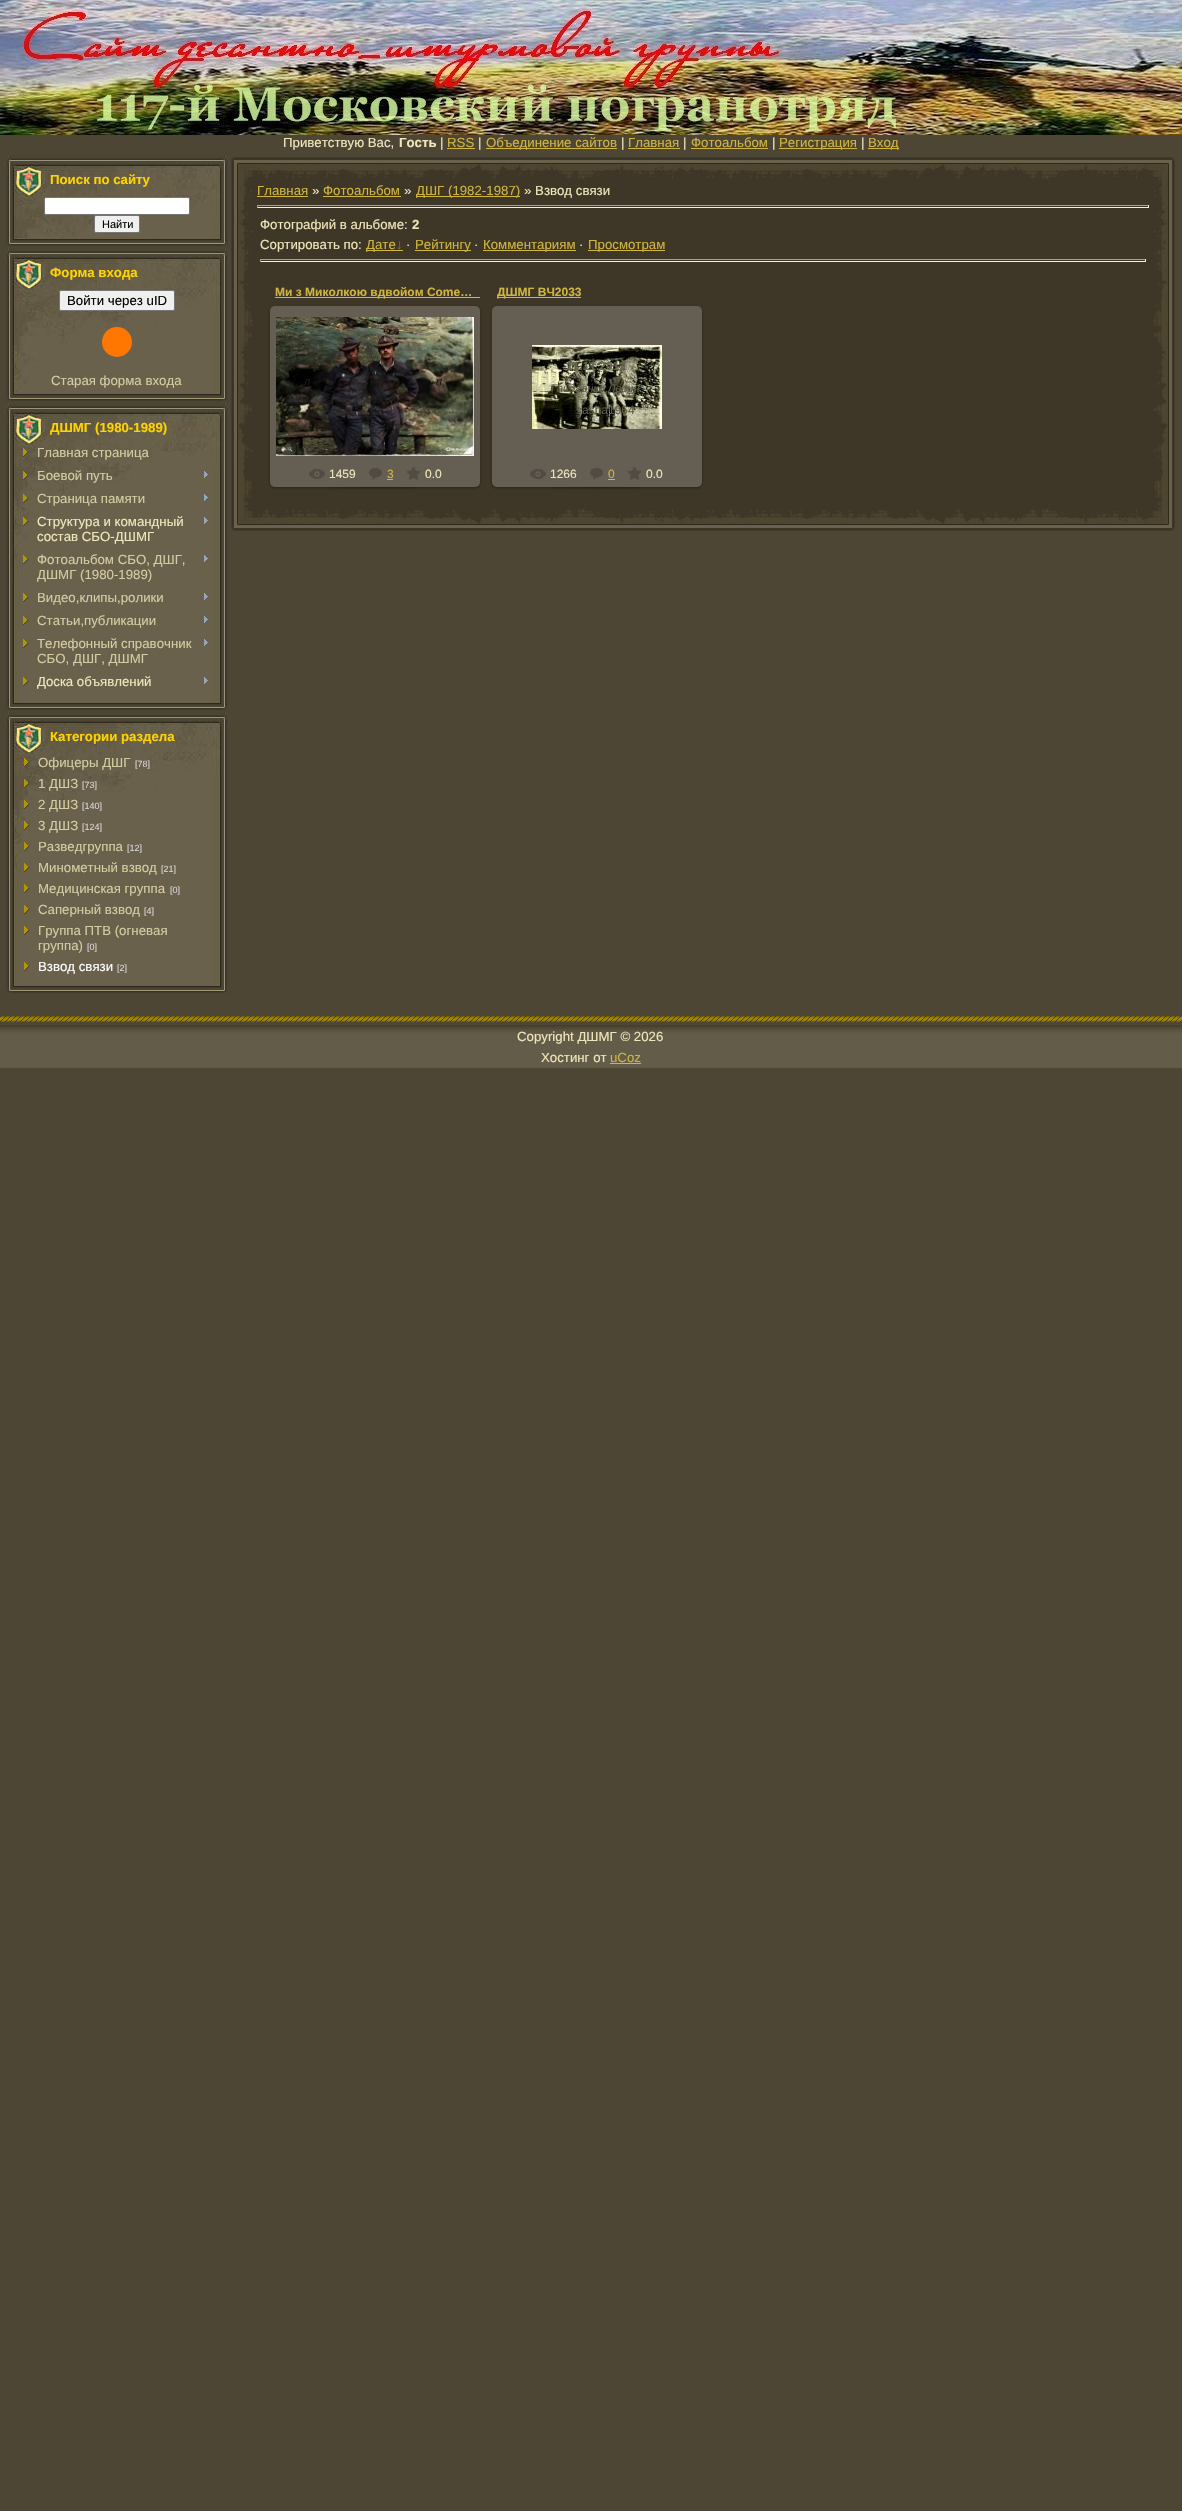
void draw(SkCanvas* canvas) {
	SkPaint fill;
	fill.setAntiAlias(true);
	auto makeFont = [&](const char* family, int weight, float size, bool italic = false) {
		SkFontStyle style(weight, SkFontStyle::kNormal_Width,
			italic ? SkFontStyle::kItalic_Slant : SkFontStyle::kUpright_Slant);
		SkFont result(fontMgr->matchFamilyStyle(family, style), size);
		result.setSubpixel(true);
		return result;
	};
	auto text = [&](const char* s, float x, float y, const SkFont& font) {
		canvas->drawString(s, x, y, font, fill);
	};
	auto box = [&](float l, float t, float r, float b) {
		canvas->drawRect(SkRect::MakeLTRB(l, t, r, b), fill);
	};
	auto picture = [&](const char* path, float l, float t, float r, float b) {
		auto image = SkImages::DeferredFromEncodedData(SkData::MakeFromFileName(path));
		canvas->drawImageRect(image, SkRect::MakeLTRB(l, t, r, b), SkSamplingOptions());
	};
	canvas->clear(0xFF4D4635);
	picture("image0.png", 0, 0, 1182, 135);
	fill.setColor(0xFFD0B541);
	box(447, 148, 475, 149);
	box(486, 148, 617, 149);
	box(628, 148, 680, 149);
	box(691, 148, 768, 149);
	box(779, 148, 857, 149);
	box(868, 148, 899, 149);
	picture("image1.png", 5, 155, 229, 248);
	fill.setColor(0xFFFFFFFF);
	canvas->drawRoundRect(SkRect::MakeLTRB(44.5f, 197.5f, 189.5f, 214.5f), 1.5f, 1.5f, fill);
	fill.setStyle(SkPaint::kStroke_Style);
	fill.setStrokeWidth(1);
	fill.setColor(0xFF767676);
	canvas->drawRoundRect(SkRect::MakeLTRB(44.5f, 197.5f, 189.5f, 214.5f), 1.5f, 1.5f, fill);
	fill.setStyle(SkPaint::kFill_Style);
	fill.setColor(0xFFEFEFEF);
	canvas->drawRoundRect(SkRect::MakeLTRB(94.5f, 215.5f, 139.5f, 232.5f), 1.5f, 1.5f, fill);
	fill.setStyle(SkPaint::kStroke_Style);
	fill.setColor(0xFF767676);
	canvas->drawRoundRect(SkRect::MakeLTRB(94.5f, 215.5f, 139.5f, 232.5f), 1.5f, 1.5f, fill);
	picture("image2.png", 7, 238, 227, 248);
	picture("image3.png", 5, 248, 229, 403);
	fill.setStyle(SkPaint::kFill_Style);
	fill.setColor(0xFFEFEFEF);
	canvas->drawRoundRect(SkRect::MakeLTRB(59.5f, 290.5f, 174.5f, 310.5f), 1.5f, 1.5f, fill);
	fill.setStyle(SkPaint::kStroke_Style);
	fill.setColor(0xFF767676);
	canvas->drawRoundRect(SkRect::MakeLTRB(59.5f, 290.5f, 174.5f, 310.5f), 1.5f, 1.5f, fill);
	fill.setStyle(SkPaint::kFill_Style);
	fill.setColor(0xFFFF7700);
	canvas->drawCircle(117, 342, 15, fill);
	picture("image2.png", 7, 393, 227, 403);
	picture("image4.png", 5, 403, 229, 712);
	picture("image5.png", 23, 448, 29, 457);
	picture("image6.png", 23, 471, 28, 480);
	picture("image7.png", 204, 471, 208, 478);
	picture("image8.png", 23, 494, 29, 503);
	picture("image7.png", 204, 494, 208, 501);
	picture("image9.png", 23, 517, 29, 526);
	picture("image7.png", 204, 517, 208, 524);
	picture("image10.png", 23, 555, 29, 564);
	picture("image7.png", 204, 555, 208, 562);
	picture("image10.png", 23, 593, 29, 602);
	picture("image7.png", 204, 593, 208, 600);
	picture("image10.png", 23, 616, 29, 625);
	picture("image7.png", 204, 616, 208, 623);
	picture("image10.png", 23, 639, 29, 648);
	picture("image7.png", 204, 639, 208, 646);
	picture("image10.png", 23, 677, 29, 686);
	picture("image7.png", 204, 677, 208, 684);
	picture("image2.png", 7, 702, 227, 712);
	picture("image11.png", 5, 712, 229, 995);
	picture("image12.png", 24, 758, 30, 767);
	picture("image13.png", 24, 779, 29, 788);
	picture("image14.png", 24, 800, 30, 809);
	picture("image15.png", 24, 821, 30, 830);
	picture("image16.png", 24, 842, 30, 851);
	picture("image10.png", 24, 863, 30, 872);
	picture("image10.png", 24, 884, 30, 893);
	picture("image10.png", 24, 905, 30, 914);
	picture("image10.png", 24, 926, 30, 935);
	picture("image10.png", 24, 962, 30, 971);
	picture("image2.png", 7, 985, 227, 995);
	picture("image17.png", 231, 157, 257, 183);
	picture("image18.png", 257, 157, 1149, 183);
	picture("image19.png", 1149, 157, 1175, 183);
	picture("image20.png", 231, 183, 257, 505);
	fill.setColor(0xFF3E3727);
	box(257, 183, 1149, 505);
	fill.setColor(0xFFD0B541);
	box(257, 196, 308, 197);
	box(323, 196, 401, 197);
	box(416, 196, 520, 197);
	fill.setColor(0xFF9F9F9F);
	box(257, 205, 1149, 206);
	fill.setColor(0xFFEEEEEE);
	box(1148, 205, 1149, 208);
	box(257, 207, 1149, 208);
	fill.setColor(0xFF9F9F9F);
	box(257, 205, 258, 208);
	fill.setColor(0xFFD0B541);
	box(366, 250, 403, 251);
	box(415, 250, 471, 251);
	box(483, 250, 576, 251);
	box(588, 250, 665, 251);
	fill.setColor(0xFF9F9F9F);
	box(260, 259, 1146, 260);
	fill.setColor(0xFFEEEEEE);
	box(1145, 259, 1146, 262);
	box(260, 261, 1146, 262);
	fill.setColor(0xFF9F9F9F);
	box(260, 259, 261, 262);
	fill.setColor(0xFFD0B541);
	box(275, 297, 480, 298);
	canvas->save();
	canvas->clipPath(SkPathBuilder(SkPathFillType::kEvenOdd).moveTo(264, 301).lineTo(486, 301).lineTo(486, 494).lineTo(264, 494).close().moveTo(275, 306).lineTo(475, 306).cubicTo(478, 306, 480, 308, 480, 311).lineTo(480, 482).cubicTo(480, 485, 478, 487, 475, 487).lineTo(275, 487).cubicTo(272, 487, 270, 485, 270, 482).lineTo(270, 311).cubicTo(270, 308, 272, 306, 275, 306).close().detach(), true);
	fill.setColor(0x5E000000);
	fill.setMaskFilter(SkMaskFilter::MakeBlur(kNormal_SkBlurStyle, 1.5f));
	canvas->drawRoundRect(SkRect::MakeLTRB(270, 307, 480, 488), 5, 5, fill);
	fill.setMaskFilter(nullptr);
	canvas->restore();
	picture("image21.png", 270, 306, 480, 487);
	picture("image22.png", 276, 317, 474, 456);
	picture("image23.png", 309, 469, 325, 479);
	picture("image24.png", 369, 468, 382, 480);
	fill.setColor(0xFFD0B541);
	box(387, 479, 393, 480);
	picture("image25.png", 407, 467, 420, 480);
	picture("image26.png", 333, 487, 418, 489);
	box(497, 297, 581, 298);
	canvas->save();
	canvas->clipPath(SkPathBuilder(SkPathFillType::kEvenOdd).moveTo(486, 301).lineTo(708, 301).lineTo(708, 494).lineTo(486, 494).close().moveTo(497, 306).lineTo(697, 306).cubicTo(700, 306, 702, 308, 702, 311).lineTo(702, 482).cubicTo(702, 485, 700, 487, 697, 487).lineTo(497, 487).cubicTo(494, 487, 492, 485, 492, 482).lineTo(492, 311).cubicTo(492, 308, 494, 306, 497, 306).close().detach(), true);
	fill.setColor(0x5E000000);
	fill.setMaskFilter(SkMaskFilter::MakeBlur(kNormal_SkBlurStyle, 1.5f));
	canvas->drawRoundRect(SkRect::MakeLTRB(492, 307, 702, 488), 5, 5, fill);
	fill.setMaskFilter(nullptr);
	canvas->restore();
	picture("image27.png", 492, 306, 702, 487);
	picture("image28.png", 532, 345, 662, 429);
	picture("image23.png", 530, 469, 546, 479);
	picture("image24.png", 590, 468, 603, 480);
	fill.setColor(0xFFD0B541);
	box(608, 479, 615, 480);
	picture("image25.png", 628, 467, 641, 480);
	picture("image26.png", 555, 487, 640, 489);
	picture("image29.png", 1149, 183, 1175, 505);
	picture("image30.png", 231, 505, 257, 531);
	picture("image31.png", 257, 505, 1149, 531);
	picture("image32.png", 1149, 505, 1175, 531);
	picture("image33.png", 0, 1015, 1182, 1075);
	box(610, 1063, 641, 1064);
	auto font1 = makeFont("Liberation Sans", 400, 13.25f);
	fill.setColor(0xFFEFE6BB);
	text("Приветствую Вас,", 283, 147, font1);
	auto font2 = makeFont("Liberation Sans", 700, 13.25f);
	text("Гость", 399, 147, font2);
	text("|", 440, 147, font1);
	fill.setColor(0xFFD0B541);
	text("RSS", 447, 147, font1);
	fill.setColor(0xFFEFE6BB);
	text("|", 478, 147, font1);
	fill.setColor(0xFFD0B541);
	text("Объединение сайтов", 486, 147, font1);
	fill.setColor(0xFFEFE6BB);
	text("|", 621, 147, font1);
	fill.setColor(0xFFD0B541);
	text("Главная", 628, 147, font1);
	fill.setColor(0xFFEFE6BB);
	text("|", 683, 147, font1);
	fill.setColor(0xFFD0B541);
	text("Фотоальбом", 691, 147, font1);
	fill.setColor(0xFFEFE6BB);
	text("|", 772, 147, font1);
	fill.setColor(0xFFD0B541);
	text("Регистрация", 779, 147, font1);
	fill.setColor(0xFFEFE6BB);
	text("|", 861, 147, font1);
	fill.setColor(0xFFD0B541);
	text("Вход", 868, 147, font1);
	fill.setColor(0xFFFFD300);
	text("Поиск по сайту", 50, 184, font2);
	auto font3 = makeFont("Liberation Sans", 400, 11);
	fill.setColor(0xFF000000);
	text("Найти", 102, 228, font3);
	fill.setColor(0xFFFFD300);
	text("Форма входа", 50, 277, font2);
	fill.setColor(0xFF000000);
	text("Войти через uID", 67, 305, font1);
	fill.setColor(0xFFD5CCA3);
	text("Старая форма входа", 51, 385, font1);
	fill.setColor(0xFFFFD300);
	text("ДШМГ (1980-1989)", 50, 432, font2);
	fill.setColor(0xFFD5CCA3);
	text("Главная страница", 37, 457, font1);
	text("Боевой путь", 37, 480, font1);
	text("Страница памяти", 37, 503, font1);
	fill.setColor(0xFFEFE6BB);
	text("Структура и командный", 37, 526, font1);
	text("состав СБО-ДШМГ", 37, 541, font1);
	fill.setColor(0xFFD5CCA3);
	text("Фотоальбом СБО, ДШГ,", 37, 564, font1);
	text("ДШМГ (1980-1989)", 37, 579, font1);
	text("Видео,клипы,ролики", 37, 602, font1);
	text("Статьи,публикации", 37, 625, font1);
	text("Телефонный справочник", 37, 648, font1);
	text("СБО, ДШГ, ДШМГ", 37, 663, font1);
	fill.setColor(0xFFEFE6BB);
	text("Доска объявлений", 37, 686, font1);
	fill.setColor(0xFFFFD300);
	text("Категории раздела", 50, 741, font2);
	fill.setColor(0xFFD5CCA3);
	text("Офицеры ДШГ", 38, 767, font1);
	auto font4 = makeFont("Liberation Sans", 400, 9);
	fill.setColor(0xFFD8D5D5);
	text("[78]", 135, 767, font4);
	fill.setColor(0xFFD5CCA3);
	text("1 ДШЗ", 38, 788, font1);
	fill.setColor(0xFFD8D5D5);
	text("[73]", 82, 788, font4);
	fill.setColor(0xFFD5CCA3);
	text("2 ДШЗ", 38, 809, font1);
	fill.setColor(0xFFD8D5D5);
	text("[140]", 82, 809, font4);
	fill.setColor(0xFFD5CCA3);
	text("3 ДШЗ", 38, 830, font1);
	fill.setColor(0xFFD8D5D5);
	text("[124]", 82, 830, font4);
	fill.setColor(0xFFD5CCA3);
	text("Разведгруппа", 38, 851, font1);
	fill.setColor(0xFFD8D5D5);
	text("[12]", 127, 851, font4);
	fill.setColor(0xFFD5CCA3);
	text("Минометный взвод", 38, 872, font1);
	fill.setColor(0xFFD8D5D5);
	text("[21]", 161, 872, font4);
	fill.setColor(0xFFD5CCA3);
	text("Медицинская группа", 38, 893, font1);
	fill.setColor(0xFFD8D5D5);
	text("[0]", 170, 893, font4);
	fill.setColor(0xFFD5CCA3);
	text("Саперный взвод", 38, 914, font1);
	fill.setColor(0xFFD8D5D5);
	text("[4]", 144, 914, font4);
	fill.setColor(0xFFD5CCA3);
	text("Группа ПТВ (огневая", 38, 935, font1);
	text("группа)", 38, 950, font1);
	fill.setColor(0xFFD8D5D5);
	text("[0]", 87, 950, font4);
	fill.setColor(0xFFFFFFFF);
	text("Взвод связи", 38, 971, font1);
	fill.setColor(0xFFD8D5D5);
	text("[2]", 117, 971, font4);
	fill.setColor(0xFFD0B541);
	text("Главная", 257, 195, font1);
	fill.setColor(0xFFEFE6BB);
	text("»", 312, 195, font1);
	fill.setColor(0xFFD0B541);
	text("Фотоальбом", 323, 195, font1);
	fill.setColor(0xFFEFE6BB);
	text("»", 404, 195, font1);
	fill.setColor(0xFFD0B541);
	text("ДШГ (1982-1987)", 416, 195, font1);
	fill.setColor(0xFFEFE6BB);
	text("» Взвод связи", 524, 195, font1);
	text("Фотографий в альбоме:", 260, 229, font1);
	text("2", 412, 229, font2);
	text("Сортировать по:", 260, 249, font1);
	fill.setColor(0xFFD0B541);
	text("Дате", 366, 249, font1);
	fill.setColor(0xFF706E6A);
	text("↓", 396, 249, font1);
	fill.setColor(0xFFEFE6BB);
	text("·", 406, 249, font1);
	fill.setColor(0xFFD0B541);
	text("Рейтингу", 415, 249, font1);
	fill.setColor(0xFFEFE6BB);
	text("·", 474, 249, font1);
	fill.setColor(0xFFD0B541);
	text("Комментариям", 483, 249, font1);
	fill.setColor(0xFFEFE6BB);
	text("·", 579, 249, font1);
	fill.setColor(0xFFD0B541);
	text("Просмотрам", 588, 249, font1);
	auto font5 = makeFont("Liberation Sans", 700, 12);
	text("Ми з Миколкою вдвойом Come…", 275, 296, font5);
	fill.setColor(0xFF443A30);
	text(".", 375, 349, font5);
	auto font6 = makeFont("Liberation Sans", 400, 11, true);
	fill.setColor(0xFF1D1A17);
	text("л", 304, 385, font6);
	text("н", 436, 385, font6);
	fill.setColor(0xFF443A30);
	text(".", 306, 413, font6);
	text(".", 324, 413, font6);
	text("...", 449, 413, font6);
	auto font7 = makeFont("Liberation Sans", 400, 12);
	fill.setColor(0xFFEFE6BB);
	text("1459", 329, 478, font7);
	fill.setColor(0xFFD0B541);
	text("3", 387, 478, font7);
	fill.setColor(0xFFEFE6BB);
	text("0.0", 425, 478, font7);
	fill.setColor(0xFFD0B541);
	text("ДШМГ ВЧ2033", 497, 296, font5);
	fill.setColor(0xFF676750);
	text("11.11.2012", 566, 370, font5);
	fill.setColor(0xFF5E5D48);
	text("Гайдаенко,Левин.", 551, 392, font6);
	text("sasha1964", 576, 414, font7);
	fill.setColor(0xFFEFE6BB);
	text("1266", 550, 478, font7);
	fill.setColor(0xFFD0B541);
	text("0", 608, 478, font7);
	fill.setColor(0xFFEFE6BB);
	text("0.0", 646, 478, font7);
	text("Copyright ДШМГ © 2026", 517, 1041, font1);
	text("Хостинг от", 541, 1062, font1);
	fill.setColor(0xFFD0B541);
	text("uCoz", 610, 1062, font1);
}
